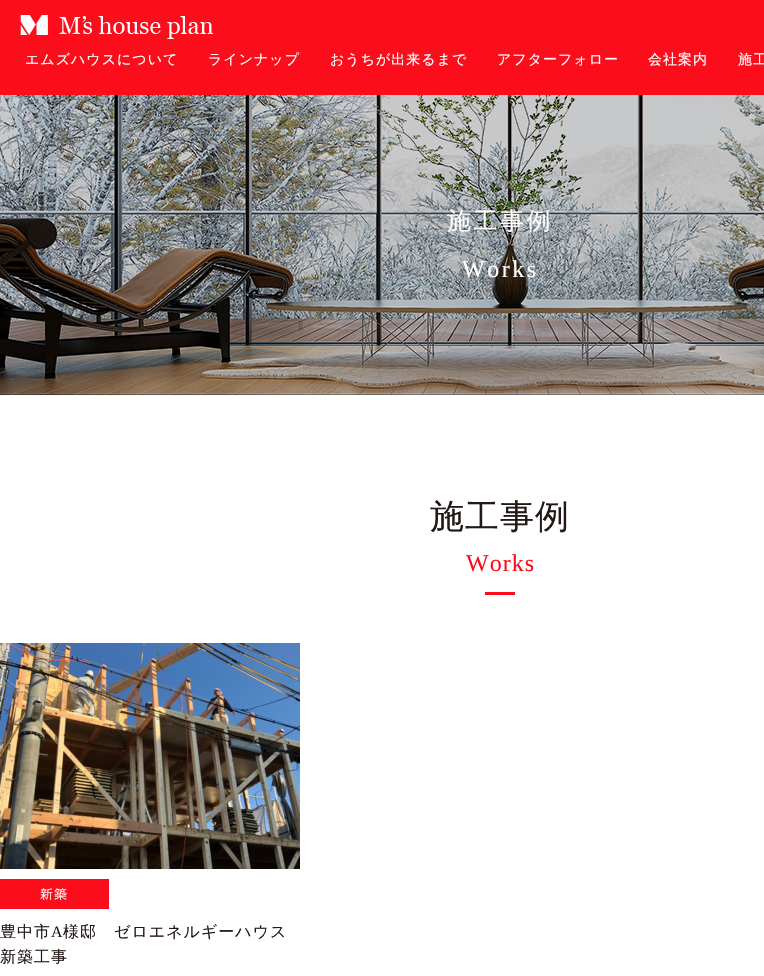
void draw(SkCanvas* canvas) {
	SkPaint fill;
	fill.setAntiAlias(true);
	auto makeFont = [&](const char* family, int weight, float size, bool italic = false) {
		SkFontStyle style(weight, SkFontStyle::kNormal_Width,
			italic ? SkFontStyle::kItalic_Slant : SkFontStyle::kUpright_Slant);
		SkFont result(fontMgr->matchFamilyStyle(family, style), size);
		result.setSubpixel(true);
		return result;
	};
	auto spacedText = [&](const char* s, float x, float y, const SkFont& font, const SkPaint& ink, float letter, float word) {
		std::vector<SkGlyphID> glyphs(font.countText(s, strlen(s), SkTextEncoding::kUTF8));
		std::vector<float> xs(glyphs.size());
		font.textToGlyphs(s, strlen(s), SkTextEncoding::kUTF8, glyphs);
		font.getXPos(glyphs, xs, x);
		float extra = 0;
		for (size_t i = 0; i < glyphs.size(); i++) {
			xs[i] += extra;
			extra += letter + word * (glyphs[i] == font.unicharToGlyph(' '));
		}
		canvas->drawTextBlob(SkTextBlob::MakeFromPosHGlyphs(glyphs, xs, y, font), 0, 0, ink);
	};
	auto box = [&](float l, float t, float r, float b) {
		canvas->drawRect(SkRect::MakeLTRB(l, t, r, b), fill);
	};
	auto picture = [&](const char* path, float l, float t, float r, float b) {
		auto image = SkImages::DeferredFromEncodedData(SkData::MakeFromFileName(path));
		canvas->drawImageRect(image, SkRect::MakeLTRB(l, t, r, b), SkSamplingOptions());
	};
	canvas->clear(0xFFFFFFFF);
	fill.setColor(0xFFFC0D1B);
	box(0, 0, 764, 95);
	picture("image0.png", 20, 15, 214, 39);
	picture("image1.png", 0, 95, 764, 395);
	box(485, 592, 515, 595);
	picture("image2.png", 0, 643, 300, 869);
	box(0, 879, 109, 909);
	auto font1 = makeFont("WenQuanYi Zen Hei", 500, 14);
	fill.setColor(0xFFFFFFFF);
	spacedText("エムズハウスについて", 25, 64, font1, fill, 1, 0);
	spacedText("ラインナップ", 208, 64, font1, fill, 1, 0);
	spacedText("おうちが出来るまで", 330, 64, font1, fill, 1, 0);
	spacedText("アフターフォロー", 497, 64, font1, fill, 1, 0);
	spacedText("会社案内", 648, 64, font1, fill, 1, 0);
	spacedText("施工", 738, 64, font1, fill, 1, 0);
	auto font2 = makeFont("WenQuanYi Zen Hei", 500, 24);
	spacedText("施工事例", 447, 229, font2, fill, 2.5f, 0);
	auto font3 = makeFont("Liberation Serif", 400, 24);
	spacedText("Works", 462, 277, font3, fill, 2.5f, 0);
	auto font4 = makeFont("WenQuanYi Zen Hei", 500, 34);
	fill.setColor(0xFF221815);
	spacedText("施工事例", 430, 528, font4, fill, 1, 0);
	fill.setColor(0xFFFC0D1B);
	spacedText("Works", 466, 571, font3, fill, 1, 0);
	auto font5 = makeFont("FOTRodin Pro", 500, 13);
	fill.setColor(0xFFFFFFFF);
	spacedText("新築", 40, 899, font5, fill, 1, 0);
	auto font6 = makeFont("WenQuanYi Zen Hei", 500, 16);
	fill.setColor(0xFF221815);
	spacedText("豊中市", 0, 937, font6, fill, 1, 0);
	auto font7 = makeFont("Liberation Serif", 400, 16);
	spacedText("A", 51, 937, font7, fill, 1, 0);
	spacedText("様邸　ゼロエネルギーハウス", 63, 937, font6, fill, 1, 0);
	spacedText("新築工事", 0, 962, font6, fill, 1, 0);
}
